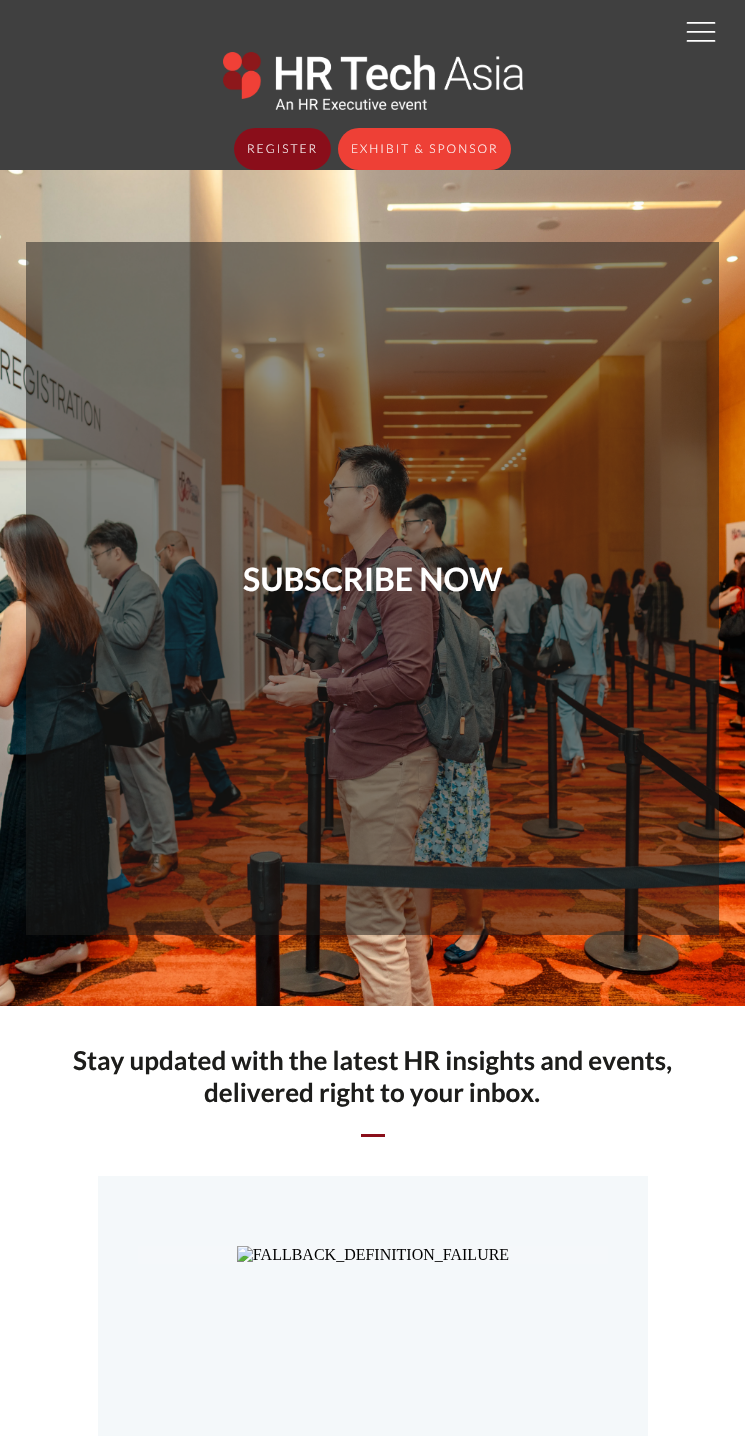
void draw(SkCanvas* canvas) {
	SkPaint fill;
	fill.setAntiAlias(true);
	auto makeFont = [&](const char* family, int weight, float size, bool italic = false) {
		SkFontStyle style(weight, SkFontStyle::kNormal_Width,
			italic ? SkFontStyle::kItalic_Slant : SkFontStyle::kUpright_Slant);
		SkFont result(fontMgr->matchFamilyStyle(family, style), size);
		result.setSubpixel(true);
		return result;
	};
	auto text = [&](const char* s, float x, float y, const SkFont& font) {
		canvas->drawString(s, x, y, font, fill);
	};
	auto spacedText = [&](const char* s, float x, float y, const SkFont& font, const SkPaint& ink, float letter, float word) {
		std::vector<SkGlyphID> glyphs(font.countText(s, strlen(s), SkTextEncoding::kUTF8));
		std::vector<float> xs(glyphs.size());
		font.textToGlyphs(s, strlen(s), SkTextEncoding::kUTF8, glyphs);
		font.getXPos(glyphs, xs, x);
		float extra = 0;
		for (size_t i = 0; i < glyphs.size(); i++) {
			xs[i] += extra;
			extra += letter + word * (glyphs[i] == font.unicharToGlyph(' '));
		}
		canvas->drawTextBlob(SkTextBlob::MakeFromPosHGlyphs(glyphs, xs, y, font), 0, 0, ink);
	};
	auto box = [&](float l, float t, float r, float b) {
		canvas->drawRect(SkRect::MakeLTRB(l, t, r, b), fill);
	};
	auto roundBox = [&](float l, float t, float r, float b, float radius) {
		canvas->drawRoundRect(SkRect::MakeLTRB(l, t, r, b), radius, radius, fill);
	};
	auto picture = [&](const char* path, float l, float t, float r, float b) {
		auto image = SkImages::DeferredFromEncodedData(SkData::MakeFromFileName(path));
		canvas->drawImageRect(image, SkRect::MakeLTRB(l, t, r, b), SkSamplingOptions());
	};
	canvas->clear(0xFFFFFFFF);
	fill.setColor(0xFF404040);
	box(0, 0, 745, 170);
	picture("image0.png", 686, 22, 716, 42);
	picture("image1.png", 223, 52, 523, 110);
	fill.setColor(0xFF8A0E1A);
	roundBox(234, 128, 331, 170, 21);
	fill.setColor(0xFFEE4036);
	roundBox(338, 128, 511, 170, 21);
	picture("image2.png", 0, 170, 745, 1006);
	fill.setColor(0x801D1D1B);
	box(26, 242, 719, 935);
	fill.setColor(0xFF8A0E1A);
	box(361, 1134, 385, 1137);
	picture("image3.png", 98, 1176, 648, 1436);
	auto font1 = makeFont("Lato", 300, 12);
	fill.setColor(0xFFFFFFFF);
	spacedText("REGISTER", 247, 153, font1, fill, 2, 0);
	spacedText("EXHIBIT & SPONSOR", 351, 153, font1, fill, 2, 0);
	auto font2 = makeFont("Lato", 700, 32);
	text("SUBSCRIBE NOW", 243, 591, font2);
	auto font3 = makeFont("Lato", 700, 26);
	fill.setColor(0xFF1D1D1B);
	text("Stay updated with the latest HR insights and events,", 73, 1070, font3);
	text("delivered right to your inbox.", 204, 1102, font3);
}
